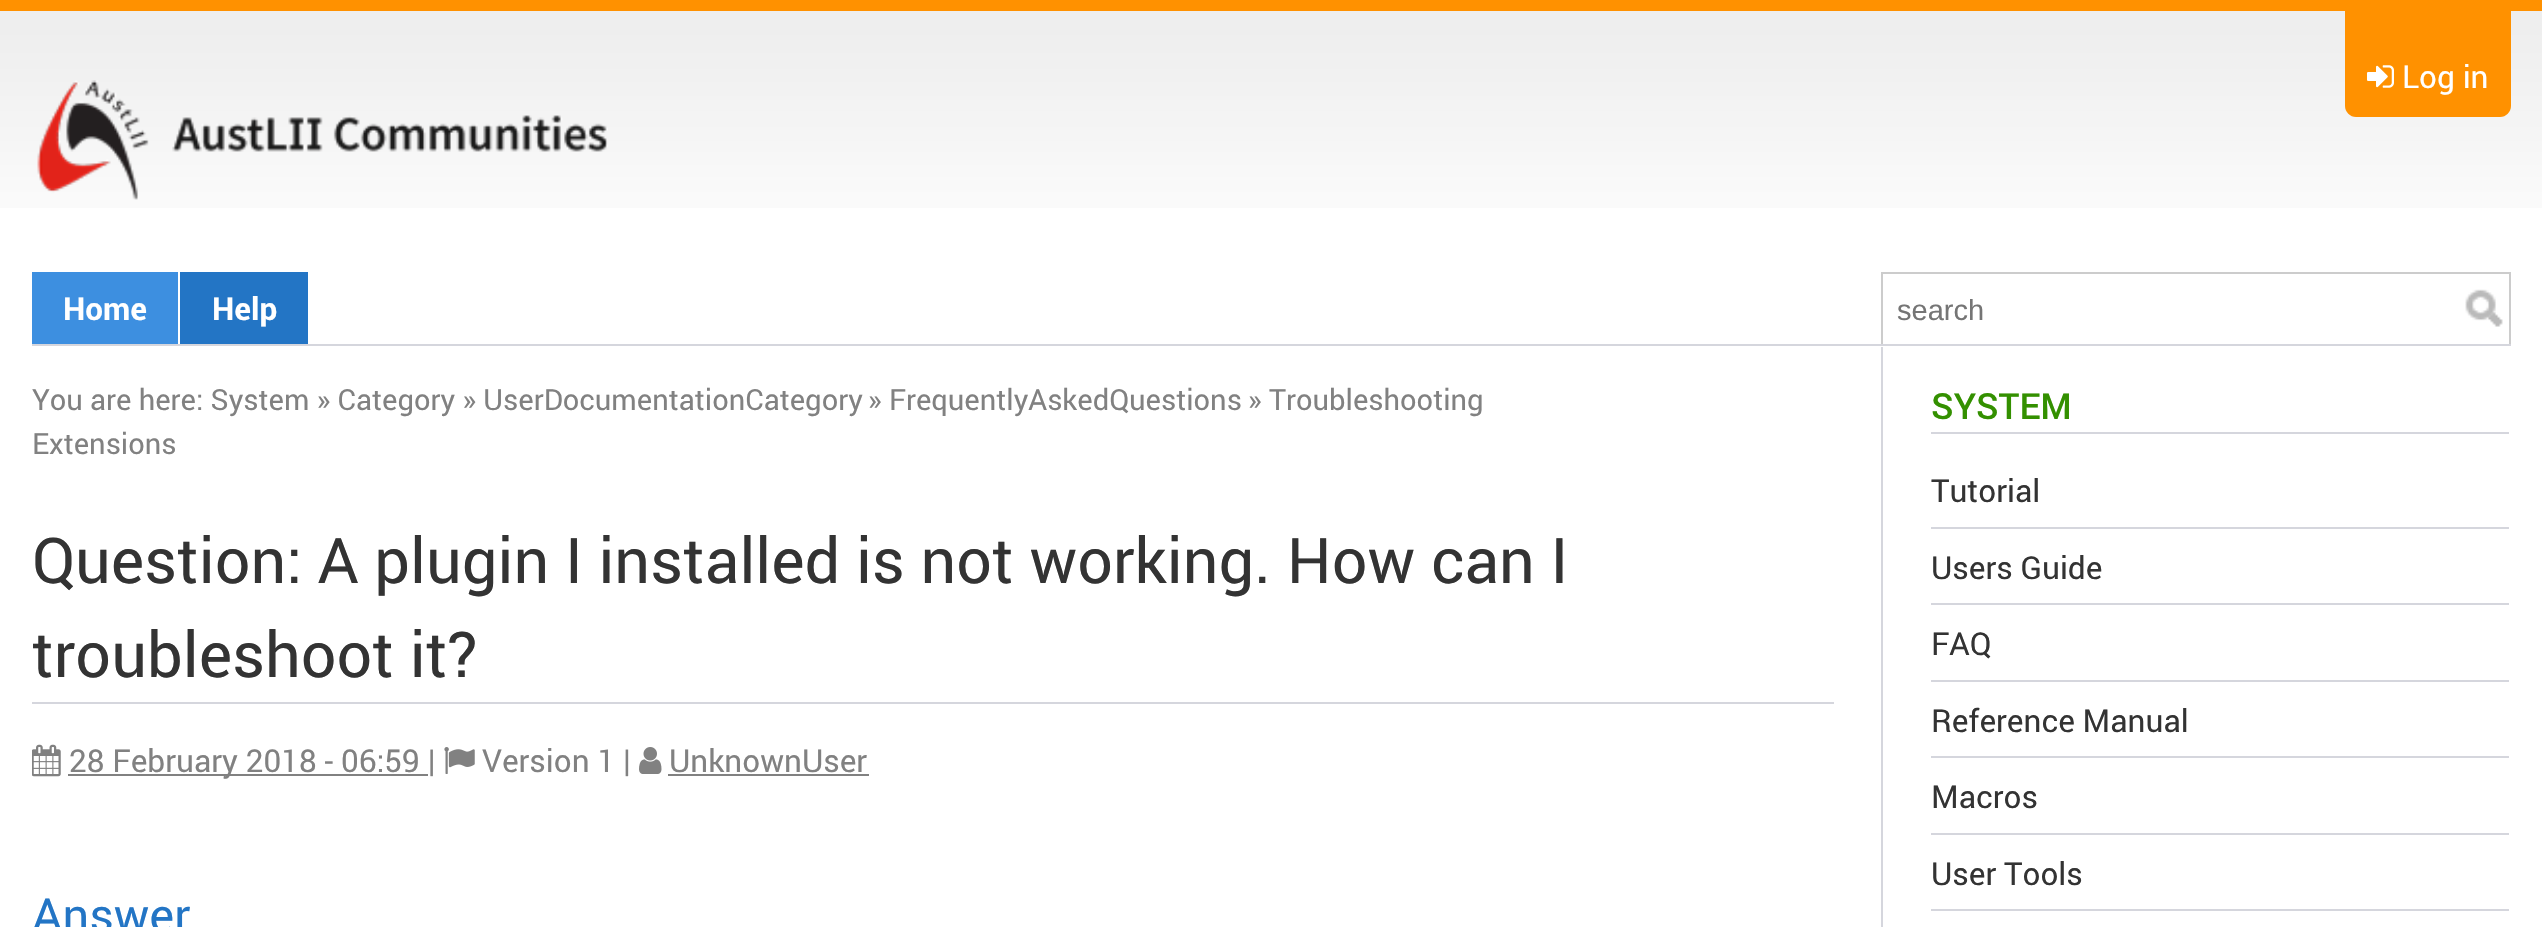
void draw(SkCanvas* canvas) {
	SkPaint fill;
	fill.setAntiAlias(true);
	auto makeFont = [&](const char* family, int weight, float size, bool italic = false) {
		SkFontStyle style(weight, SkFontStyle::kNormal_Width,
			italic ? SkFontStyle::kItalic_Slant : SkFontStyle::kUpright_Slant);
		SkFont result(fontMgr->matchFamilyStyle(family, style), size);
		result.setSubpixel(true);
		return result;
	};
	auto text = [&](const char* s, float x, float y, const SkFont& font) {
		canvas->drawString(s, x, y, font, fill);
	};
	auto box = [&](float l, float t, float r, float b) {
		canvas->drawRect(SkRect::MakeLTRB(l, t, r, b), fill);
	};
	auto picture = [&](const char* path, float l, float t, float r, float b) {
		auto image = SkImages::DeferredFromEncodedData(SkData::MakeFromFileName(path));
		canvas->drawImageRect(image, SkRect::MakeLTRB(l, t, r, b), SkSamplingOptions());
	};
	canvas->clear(0xFFFFFFFF);
	picture("image0.png", 0, 11, 2542, 208);
	fill.setColor(0xFFFF9100);
	box(0, 0, 2542, 11);
	picture("image1.png", 37, 80, 608, 200);
	canvas->drawPath(SkPathBuilder().moveTo(2345, 11).lineTo(2511, 11).lineTo(2511, 106).cubicTo(2511, 112, 2506, 117, 2500, 117).lineTo(2356, 117).cubicTo(2350, 117, 2345, 112, 2345, 106).close().detach(), fill);
	picture("image2.png", 2367, 65, 2394, 88);
	fill.setColor(0xFFD5D6DD);
	box(32, 344, 2511, 346);
	fill.setColor(0xFF3D8FE0);
	box(32, 272, 178, 344);
	fill.setColor(0xFF2375C5);
	box(180, 272, 308, 344);
	fill.setColor(0xFFCCCCCC);
	box(1881, 272, 2511, 274);
	box(2509, 272, 2511, 344);
	box(1881, 272, 1883, 344);
	picture("image3.png", 2465, 289, 2503, 327);
	fill.setColor(0xFFD5D6DD);
	box(32, 702, 1834, 704);
	picture("image4.png", 32, 744, 61, 777);
	fill.setColor(0xFF818181);
	box(68, 774, 428, 776);
	picture("image5.png", 444, 747, 475, 774);
	picture("image6.png", 639, 747, 662, 774);
	box(668, 774, 869, 776);
	fill.setColor(0xFFD5D6DD);
	box(1881, 347, 1883, 927);
	box(1931, 432, 2509, 434);
	box(1931, 527, 2509, 529);
	box(1931, 603, 2509, 605);
	box(1931, 680, 2509, 682);
	box(1931, 756, 2509, 758);
	box(1931, 833, 2509, 835);
	box(1931, 909, 2509, 911);
	auto font1 = makeFont("Roboto", 400, 31.5f);
	fill.setColor(0xFFFFFFFF);
	text("Log in", 2402, 88, font1);
	auto font2 = makeFont("Roboto", 700, 31.5f);
	text("Home", 63, 320, font2);
	text("Help", 212, 320, font2);
	auto font3 = makeFont("Liberation Sans", 400, 29);
	fill.setColor(0xFF757575);
	text("search", 1897, 320, font3);
	auto font4 = makeFont("Roboto", 400, 29.1f);
	fill.setColor(0xFF818181);
	text("You are here: System » Category » UserDocumentationCategory", 32, 410, font4);
	text("» FrequentlyAskedQuestions", 868, 410, font4);
	text("» Troubleshooting", 1248, 410, font4);
	text("Extensions", 32, 454, font4);
	auto font5 = makeFont("Roboto", 400, 63);
	fill.setColor(0xFF333333);
	text("Question: A plugin I installed is not working. How can I", 32, 583, font5);
	text("troubleshoot it?", 32, 677, font5);
	fill.setColor(0xFF818181);
	text("28 February 2018 - 06:59 |", 69, 772, font1);
	text("Version 1 |", 482, 772, font1);
	text("UnknownUser", 669, 772, font1);
	auto font6 = makeFont("Roboto", 400, 47);
	fill.setColor(0xFF2375C5);
	text("Answer", 32, 932, font6);
	auto font7 = makeFont("Roboto", 500, 36);
	fill.setColor(0xFF339000);
	text("SYSTEM", 1931, 419, font7);
	fill.setColor(0xFF333333);
	text("Tutorial", 1931, 502, font1);
	text("Users Guide", 1931, 579, font1);
	text("FAQ", 1931, 655, font1);
	text("Reference Manual", 1931, 732, font1);
	text("Macros", 1931, 808, font1);
	text("User Tools", 1931, 885, font1);
}
